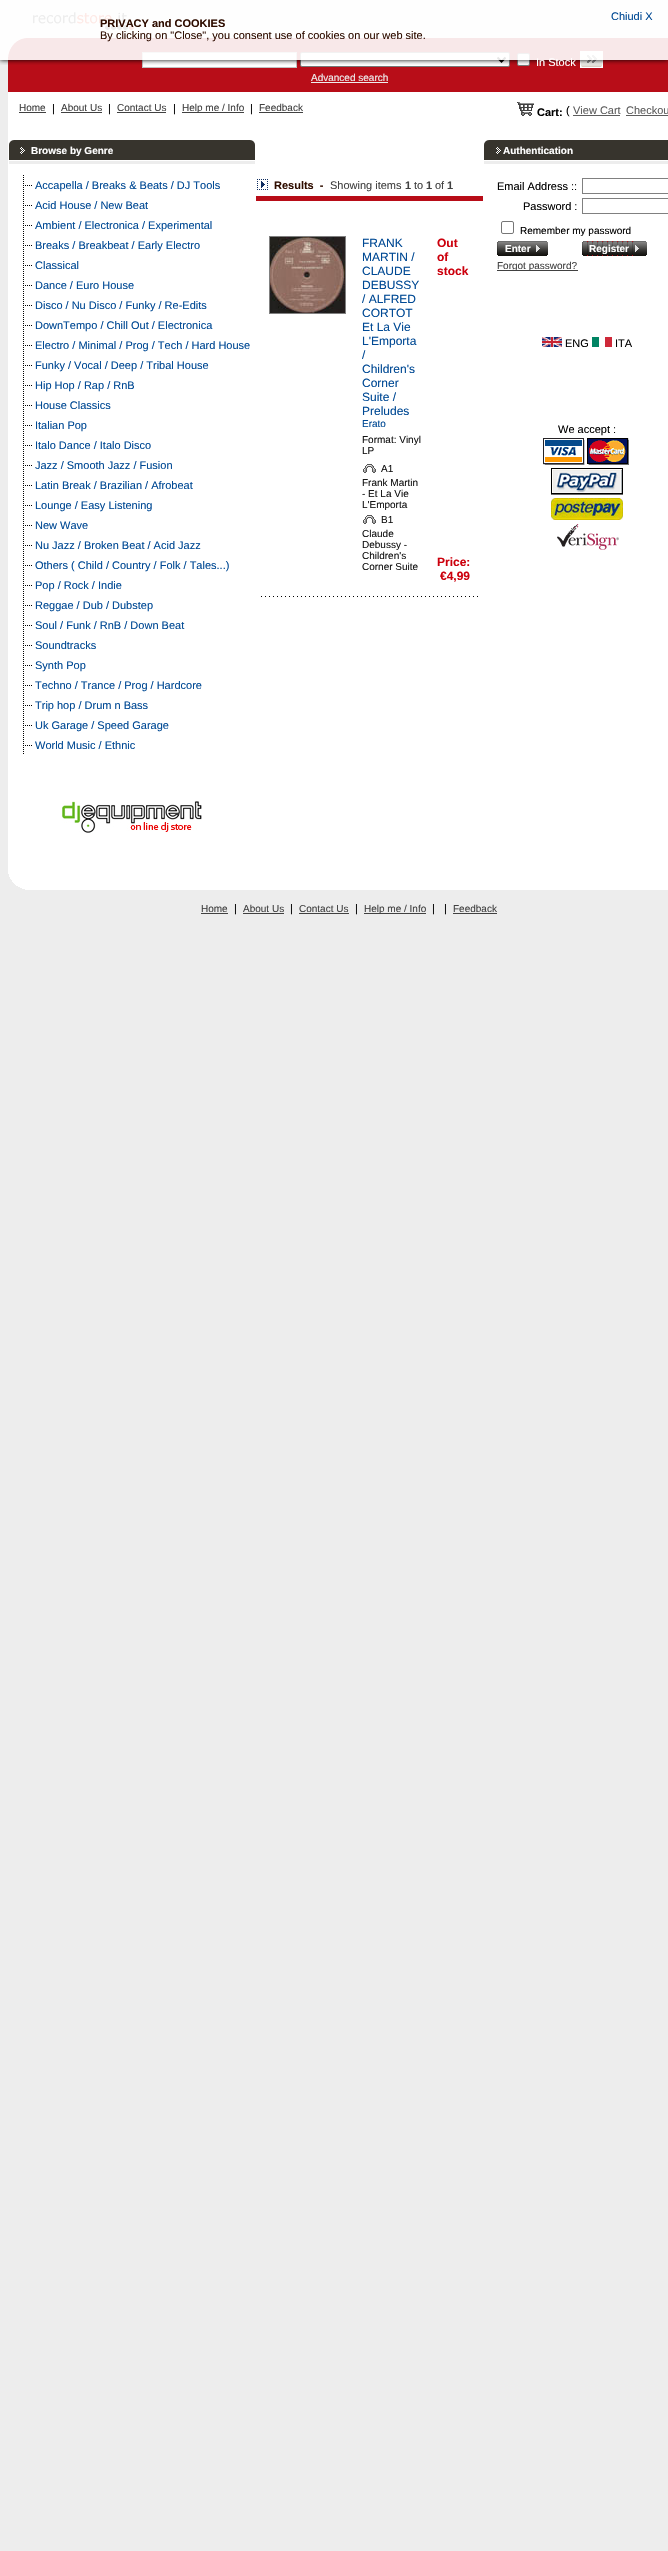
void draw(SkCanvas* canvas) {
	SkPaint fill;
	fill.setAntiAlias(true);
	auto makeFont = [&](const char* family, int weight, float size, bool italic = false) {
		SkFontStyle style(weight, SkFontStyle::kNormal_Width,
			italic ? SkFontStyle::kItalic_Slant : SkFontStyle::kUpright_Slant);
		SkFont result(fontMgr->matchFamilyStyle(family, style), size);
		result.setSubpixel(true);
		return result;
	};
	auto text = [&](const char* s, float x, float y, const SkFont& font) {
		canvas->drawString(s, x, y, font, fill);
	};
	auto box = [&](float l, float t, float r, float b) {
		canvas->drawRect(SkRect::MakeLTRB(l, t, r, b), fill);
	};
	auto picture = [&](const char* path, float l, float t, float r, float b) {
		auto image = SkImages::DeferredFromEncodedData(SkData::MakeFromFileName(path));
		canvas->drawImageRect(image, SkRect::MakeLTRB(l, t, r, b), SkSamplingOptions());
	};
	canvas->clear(0xFFEDEDED);
	picture("image0.png", 33, 12, 134, 30);
	picture("image1.png", 8, 38, 28, 92);
	fill.setColor(0xFFB80D18);
	box(28, 38, 668, 92);
	fill.setColor(0xFFFFFFFF);
	canvas->drawRect(SkRect::MakeLTRB(142.5f, 52.5f, 296.5f, 67.5f), fill);
	fill.setStyle(SkPaint::kStroke_Style);
	fill.setStrokeWidth(1);
	fill.setColor(0xFFC1C1C1);
	canvas->drawRect(SkRect::MakeLTRB(142.5f, 52.5f, 296.5f, 67.5f), fill);
	fill.setStyle(SkPaint::kFill_Style);
	fill.setColor(0xFFFFFFFF);
	canvas->drawRoundRect(SkRect::MakeLTRB(300.5f, 52.5f, 509.5f, 66.5f), 1.5f, 1.5f, fill);
	fill.setStyle(SkPaint::kStroke_Style);
	fill.setColor(0xFF767676);
	canvas->drawRoundRect(SkRect::MakeLTRB(300.5f, 52.5f, 509.5f, 66.5f), 1.5f, 1.5f, fill);
	fill.setStrokeWidth(2);
	fill.setColor(0xFF000000);
	canvas->drawPath(SkPathBuilder().moveTo(497.5f, 57.5f).lineTo(501.5f, 61.5f).lineTo(505.5f, 57.5f).detach(), fill);
	fill.setStyle(SkPaint::kFill_Style);
	fill.setColor(0xFFFFFFFF);
	canvas->drawRoundRect(SkRect::MakeLTRB(517.5f, 53.5f, 529.5f, 65.5f), 1.5f, 1.5f, fill);
	fill.setStyle(SkPaint::kStroke_Style);
	fill.setStrokeWidth(1);
	fill.setColor(0xFF767676);
	canvas->drawRoundRect(SkRect::MakeLTRB(517.5f, 53.5f, 529.5f, 65.5f), 1.5f, 1.5f, fill);
	picture("image2.png", 580, 51, 603, 68);
	canvas->save();
	canvas->clipRect(SkRect::MakeLTRB(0, 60, 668, 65));
	fill.setStyle(SkPaint::kFill_Style);
	fill.setColor(0xFF000000);
	fill.setMaskFilter(SkMaskFilter::MakeBlur(kNormal_SkBlurStyle, 2.5f));
	canvas->drawRect(SkRect::MakeLTRB(0, 0, 668, 60), fill);
	fill.setMaskFilter(nullptr);
	canvas->restore();
	fill.setColor(0xFFEEEEEE);
	box(311, 82, 388, 83);
	fill.setColor(0xFFFFFFFF);
	box(8, 92, 668, 869);
	fill.setColor(0xFF414141);
	box(19, 112, 46, 113);
	box(61, 112, 102, 113);
	box(117, 112, 166, 113);
	box(182, 112, 244, 113);
	box(259, 112, 303, 113);
	picture("image3.png", 517, 102, 534, 116);
	fill.setColor(0xFF5D5D5D);
	box(573, 115, 620, 116);
	box(626, 115, 668, 116);
	picture("image4.png", 9, 140, 14, 160);
	fill.setColor(0xFF37342D);
	box(14, 140, 250, 160);
	picture("image5.png", 250, 140, 255, 160);
	picture("image6.png", 20, 147, 25, 154);
	fill.setColor(0xFFEDEDED);
	box(9, 161, 255, 164);
	picture("image7.png", 23, 175, 32, 194);
	picture("image7.png", 23, 195, 32, 214);
	picture("image7.png", 23, 215, 32, 234);
	picture("image7.png", 23, 235, 32, 254);
	picture("image7.png", 23, 255, 32, 274);
	picture("image7.png", 23, 275, 32, 294);
	picture("image7.png", 23, 295, 32, 314);
	picture("image7.png", 23, 315, 32, 334);
	picture("image7.png", 23, 335, 32, 354);
	picture("image7.png", 23, 355, 32, 374);
	picture("image7.png", 23, 375, 32, 394);
	picture("image7.png", 23, 395, 32, 414);
	picture("image7.png", 23, 415, 32, 434);
	picture("image7.png", 23, 435, 32, 454);
	picture("image7.png", 23, 455, 32, 474);
	picture("image7.png", 23, 475, 32, 494);
	picture("image7.png", 23, 495, 32, 514);
	picture("image7.png", 23, 515, 32, 534);
	picture("image7.png", 23, 535, 32, 554);
	picture("image7.png", 23, 555, 32, 574);
	picture("image7.png", 23, 575, 32, 594);
	picture("image7.png", 23, 595, 32, 614);
	picture("image7.png", 23, 615, 32, 634);
	picture("image7.png", 23, 635, 32, 654);
	picture("image7.png", 23, 655, 32, 674);
	picture("image7.png", 23, 675, 32, 694);
	picture("image7.png", 23, 695, 32, 714);
	picture("image7.png", 23, 715, 32, 734);
	picture("image7.png", 23, 735, 32, 754);
	picture("image8.png", 62, 801, 202, 833);
	fill.setColor(0xFFB80D18);
	box(256, 196, 483, 201);
	picture("image9.png", 257, 179, 268, 190);
	fill.setStyle(SkPaint::kStroke_Style);
	fill.setColor(0xFF808080);
	canvas->drawRect(SkRect::MakeLTRB(269.5f, 236.5f, 345.5f, 313.5f), fill);
	picture("image10.png", 270, 237, 345, 313);
	picture("image11.png", 363, 464, 376, 473);
	picture("image11.png", 363, 515, 376, 524);
	picture("image12.png", 261, 596, 478, 597);
	picture("image4.png", 484, 140, 489, 160);
	fill.setStyle(SkPaint::kFill_Style);
	fill.setColor(0xFF37342D);
	box(489, 140, 668, 160);
	picture("image6.png", 496, 147, 501, 154);
	fill.setColor(0xFFEDEDED);
	box(484, 161, 668, 164);
	fill.setStyle(SkPaint::kStroke_Style);
	fill.setColor(0xFF808080);
	canvas->drawRect(SkRect::MakeLTRB(582.5f, 178.5f, 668.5f, 193.5f), fill);
	canvas->drawRect(SkRect::MakeLTRB(582.5f, 198.5f, 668.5f, 213.5f), fill);
	fill.setColor(0xFF767676);
	canvas->drawRoundRect(SkRect::MakeLTRB(501.5f, 221.5f, 513.5f, 233.5f), 1.5f, 1.5f, fill);
	picture("image13.png", 497, 241, 502, 256);
	picture("image14.png", 502, 241, 536, 256);
	picture("image15.png", 536, 241, 543, 256);
	picture("image16.png", 536, 245, 540, 252);
	picture("image17.png", 543, 241, 548, 256);
	picture("image13.png", 582, 241, 587, 256);
	fill.setStyle(SkPaint::kFill_Style);
	fill.setColor(0xFFBD1019);
	box(587, 241, 633, 256);
	picture("image18.png", 587, 241, 635, 256);
	picture("image15.png", 635, 241, 642, 256);
	picture("image16.png", 635, 245, 639, 252);
	picture("image17.png", 642, 241, 647, 256);
	fill.setColor(0xFF414141);
	box(497, 270, 578, 271);
	picture("image19.png", 542, 337, 562, 347);
	picture("image20.png", 592, 337, 612, 347);
	picture("image21.png", 543, 438, 629, 465);
	picture("image22.png", 551, 468, 623, 495);
	picture("image23.png", 551, 498, 623, 520);
	picture("image24.png", 557, 524, 619, 550);
	picture("image25.png", 8, 869, 30, 890);
	fill.setColor(0xFFFFFFFF);
	box(30, 869, 668, 890);
	fill.setColor(0xFF414141);
	box(201, 913, 228, 914);
	box(243, 913, 284, 914);
	box(299, 913, 349, 914);
	box(364, 913, 426, 914);
	box(453, 913, 497, 914);
	auto font1 = makeFont("Liberation Sans", 400, 11);
	fill.setColor(0xFFFFFFFF);
	text("In Stock", 536, 66, font1);
	fill.setColor(0xE6FFFFFF);
	box(0, 0, 668, 60);
	fill.setColor(0xFF2F0D00);
	text("By clicking on \"Close\", you consent use of cookies on our web site.", 100, 39, font1);
	auto font2 = makeFont("Liberation Sans", 700, 11);
	text("PRIVACY and COOKIES", 100, 27, font2);
	fill.setColor(0xFF004994);
	text("Chiudi X", 611, 20, font1);
	auto font3 = makeFont("Liberation Sans", 400, 10);
	fill.setColor(0xFFEEEEEE);
	text("Advanced search", 311, 81, font3);
	fill.setColor(0xFF414141);
	text("Home", 19, 111, font3);
	fill.setColor(0xFF000000);
	text("|", 52, 112, font1);
	fill.setColor(0xFF414141);
	text("About Us", 61, 111, font3);
	fill.setColor(0xFF000000);
	text("|", 108, 112, font1);
	fill.setColor(0xFF414141);
	text("Contact Us", 117, 111, font3);
	fill.setColor(0xFF000000);
	text("|", 173, 112, font1);
	fill.setColor(0xFF414141);
	text("Help me / Info", 182, 111, font3);
	fill.setColor(0xFF000000);
	text("|", 250, 112, font1);
	fill.setColor(0xFF414141);
	text("Feedback", 259, 111, font3);
	fill.setColor(0xFF000000);
	text("Cart:", 537, 116, font2);
	text("(", 566, 114, font1);
	fill.setColor(0xFF5D5D5D);
	text("View Cart", 573, 114, font1);
	text("Checkou", 626, 114, font1);
	auto font4 = makeFont("Liberation Sans", 700, 10);
	fill.setColor(0xFFFFFFFF);
	text("Browse by Genre", 31, 154, font4);
	fill.setColor(0xFF004994);
	text("Accapella / Breaks & Beats / DJ Tools", 35, 189, font1);
	text("Acid House / New Beat", 35, 209, font1);
	text("Ambient / Electronica / Experimental", 35, 229, font1);
	text("Breaks / Breakbeat / Early Electro", 35, 249, font1);
	text("Classical", 35, 269, font1);
	text("Dance / Euro House", 35, 289, font1);
	text("Disco / Nu Disco / Funky / Re-Edits", 35, 309, font1);
	text("DownTempo / Chill Out / Electronica", 35, 329, font1);
	text("Electro / Minimal / Prog / Tech / Hard House", 35, 349, font1);
	text("Funky / Vocal / Deep / Tribal House", 35, 369, font1);
	text("Hip Hop / Rap / RnB", 35, 389, font1);
	text("House Classics", 35, 409, font1);
	text("Italian Pop", 35, 429, font1);
	text("Italo Dance / Italo Disco", 35, 449, font1);
	text("Jazz / Smooth Jazz / Fusion", 35, 469, font1);
	text("Latin Break / Brazilian / Afrobeat", 35, 489, font1);
	text("Lounge / Easy Listening", 35, 509, font1);
	text("New Wave", 35, 529, font1);
	text("Nu Jazz / Broken Beat / Acid Jazz", 35, 549, font1);
	text("Others ( Child / Country / Folk / Tales...)", 35, 569, font1);
	text("Pop / Rock / Indie", 35, 589, font1);
	text("Reggae / Dub / Dubstep", 35, 609, font1);
	text("Soul / Funk / RnB / Down Beat", 35, 629, font1);
	text("Soundtracks", 35, 649, font1);
	text("Synth Pop", 35, 669, font1);
	text("Techno / Trance / Prog / Hardcore", 35, 689, font1);
	text("Trip hop / Drum n Bass", 35, 709, font1);
	text("Uk Garage / Speed Garage", 35, 729, font1);
	text("World Music / Ethnic", 35, 749, font1);
	fill.setColor(0xFF2F0D00);
	text("Results  -", 274, 189, font2);
	fill.setColor(0xFF414141);
	text("Showing items", 330, 189, font1);
	text("1", 405, 189, font2);
	text("to", 414, 189, font1);
	text("1", 426, 189, font2);
	text("of", 435, 189, font1);
	text("1", 447, 189, font2);
	auto font5 = makeFont("Liberation Sans", 400, 12);
	fill.setColor(0xFF004994);
	text("FRANK", 362, 247, font5);
	text("MARTIN /", 362, 261, font5);
	text("CLAUDE", 362, 275, font5);
	text("DEBUSSY", 362, 289, font5);
	text("/ ALFRED", 362, 303, font5);
	text("CORTOT", 362, 317, font5);
	text("Et La Vie", 362, 331, font5);
	text("L'Emporta", 362, 345, font5);
	text("/", 362, 359, font5);
	text("Children's", 362, 373, font5);
	text("Corner", 362, 387, font5);
	text("Suite /", 362, 401, font5);
	text("Preludes", 362, 415, font5);
	text("Erato", 362, 427, font3);
	fill.setColor(0xFF141414);
	text("Format: Vinyl", 362, 443, font3);
	text("LP", 362, 454, font3);
	text("A1", 381, 472, font3);
	text("Frank Martin", 362, 486, font3);
	text("- Et La Vie", 362, 497, font3);
	text("L'Emporta", 362, 508, font3);
	text("B1", 381, 523, font3);
	text("Claude", 362, 537, font3);
	text("Debussy -", 362, 548, font3);
	text("Children's", 362, 559, font3);
	text("Corner Suite", 362, 570, font3);
	auto font6 = makeFont("Liberation Sans", 700, 12);
	fill.setColor(0xFFCC000D);
	text("Out", 437, 247, font6);
	text("of", 437, 261, font6);
	text("stock", 437, 275, font6);
	text("Price:", 437, 566, font6);
	text("€4,99", 440, 580, font6);
	fill.setColor(0xFFFFFFFF);
	text("Authentication", 503, 154, font4);
	fill.setColor(0xFF000000);
	text("Email Address ::", 497, 190, font1);
	text("Password :", 523, 210, font1);
	text("Remember my password", 520, 234, font3);
	fill.setColor(0xFFFFFFFF);
	text("Enter", 505, 252, font4);
	text("Register", 589, 252, font4);
	fill.setColor(0xFF414141);
	text("Forgot password?", 497, 269, font3);
	fill.setColor(0xFF000000);
	text("ENG", 565, 347, font1);
	text("ITA", 615, 347, font1);
	text("We accept :", 558, 433, font1);
	fill.setColor(0xFF414141);
	text("Home", 201, 912, font3);
	fill.setColor(0xFF000000);
	text("|", 234, 912, font1);
	fill.setColor(0xFF414141);
	text("About Us", 243, 912, font3);
	fill.setColor(0xFF000000);
	text("|", 290, 912, font1);
	fill.setColor(0xFF414141);
	text("Contact Us", 299, 912, font3);
	fill.setColor(0xFF000000);
	text("|", 355, 912, font1);
	fill.setColor(0xFF414141);
	text("Help me / Info", 364, 912, font3);
	fill.setColor(0xFF000000);
	text("|", 432, 912, font1);
	text("|", 444, 912, font1);
	fill.setColor(0xFF414141);
	text("Feedback", 453, 912, font3);
}
